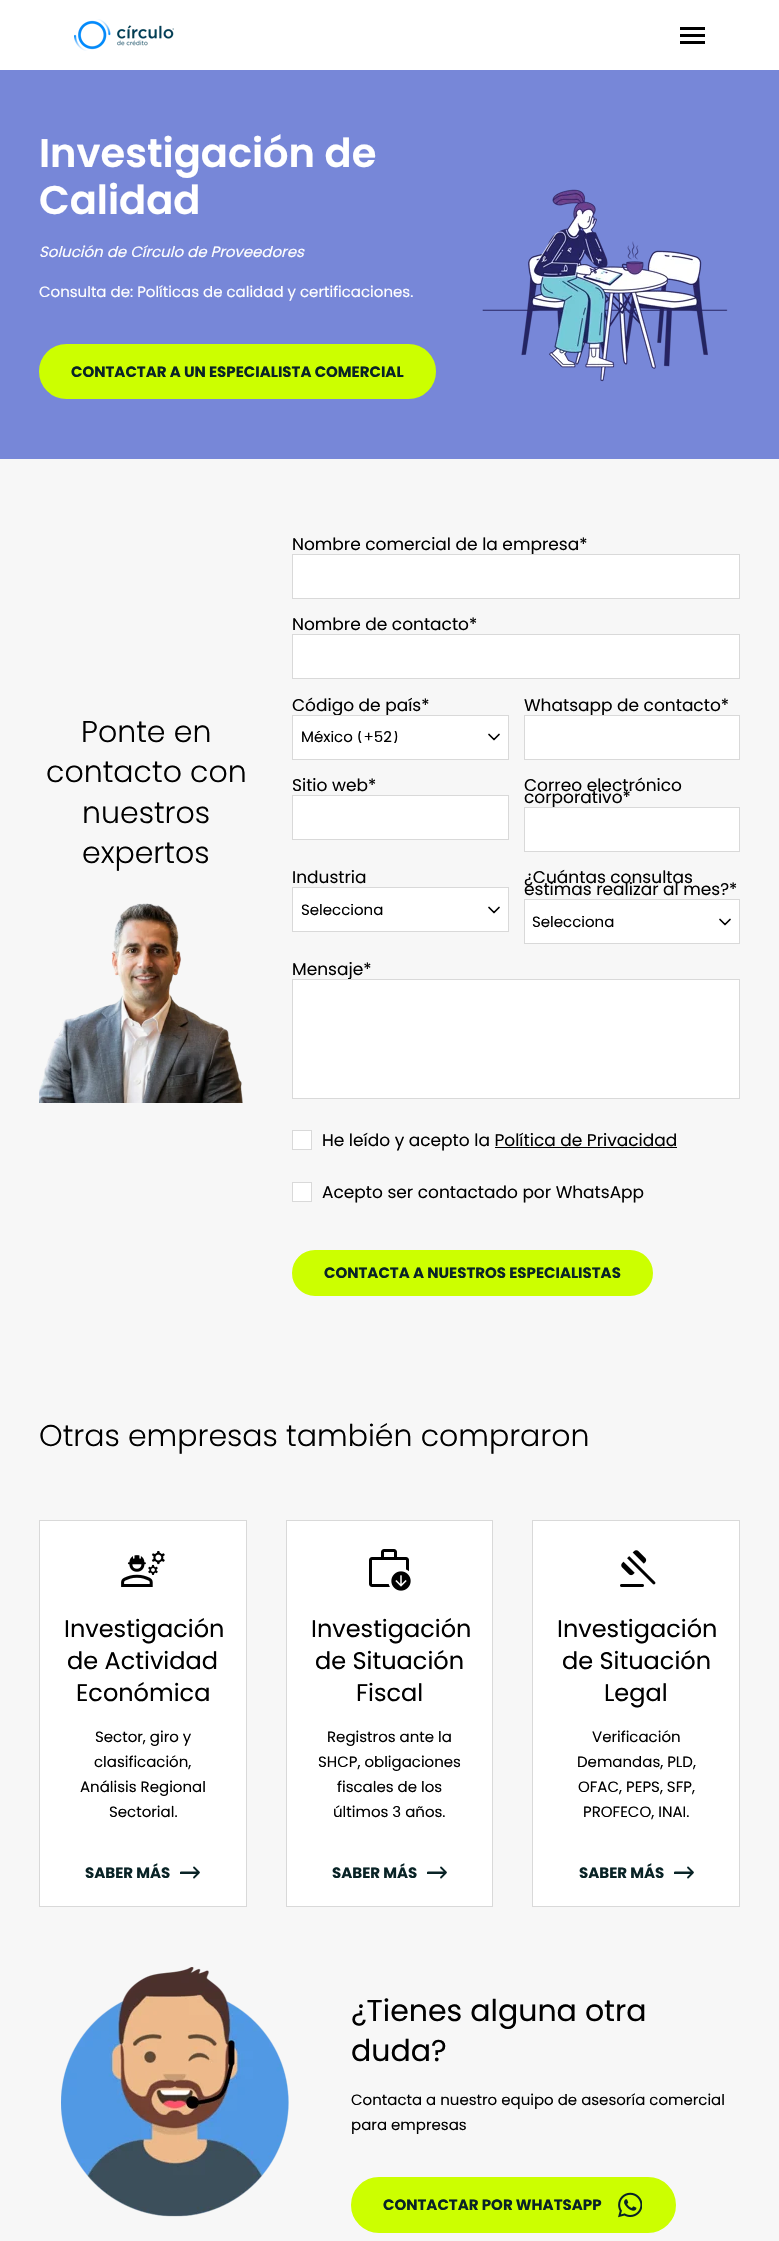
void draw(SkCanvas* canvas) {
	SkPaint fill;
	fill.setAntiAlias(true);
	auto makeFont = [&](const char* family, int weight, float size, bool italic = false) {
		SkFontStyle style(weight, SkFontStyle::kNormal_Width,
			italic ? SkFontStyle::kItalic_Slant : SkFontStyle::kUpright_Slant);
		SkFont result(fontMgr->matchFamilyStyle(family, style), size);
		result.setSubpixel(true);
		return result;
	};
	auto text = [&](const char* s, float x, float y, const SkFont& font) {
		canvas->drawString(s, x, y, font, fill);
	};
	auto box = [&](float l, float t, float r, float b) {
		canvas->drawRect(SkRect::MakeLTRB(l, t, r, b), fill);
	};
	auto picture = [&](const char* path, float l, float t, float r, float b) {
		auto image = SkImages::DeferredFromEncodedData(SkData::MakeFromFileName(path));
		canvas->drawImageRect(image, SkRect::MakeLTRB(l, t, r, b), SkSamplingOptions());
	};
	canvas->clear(0xFFFFFFFF);
	picture("image0.png", 74, 19, 174, 51);
	fill.setColor(0xFF000000);
	box(680, 27, 705, 30);
	box(680, 41, 705, 44);
	box(680, 34, 705, 37);
	fill.setColor(0xFF7787D8);
	box(0, 70, 779, 459);
	fill.setColor(0xFFCCFF00);
	canvas->drawRoundRect(SkRect::MakeLTRB(40, 345, 435, 398), 26.5f, 26.5f, fill);
	fill.setStyle(SkPaint::kStroke_Style);
	fill.setStrokeWidth(2);
	canvas->drawRoundRect(SkRect::MakeLTRB(40, 345, 435, 398), 26.5f, 26.5f, fill);
	picture("image1.png", 482, 189, 728, 382);
	fill.setStyle(SkPaint::kFill_Style);
	fill.setColor(0xFFF7F7F7);
	box(0, 459, 779, 2241);
	picture("image2.png", 39, 903, 243, 1103);
	fill.setColor(0xFFFFFFFF);
	canvas->drawRect(SkRect::MakeLTRB(292.5f, 634.5f, 739.5f, 678.5f), fill);
	fill.setStyle(SkPaint::kStroke_Style);
	fill.setStrokeWidth(1);
	fill.setColor(0xFFD9D9D9);
	canvas->drawRect(SkRect::MakeLTRB(292.5f, 634.5f, 739.5f, 678.5f), fill);
	fill.setStyle(SkPaint::kFill_Style);
	fill.setColor(0xFFFFFFFF);
	box(293, 716, 508, 759);
	fill.setStyle(SkPaint::kStroke_Style);
	fill.setStrokeWidth(1.7f);
	fill.setStrokeCap(SkPaint::kRound_Cap);
	fill.setStrokeJoin(SkPaint::kRound_Join);
	fill.setColor(0xFF000000);
	canvas->drawPath(SkPathBuilder().moveTo(489, 734.5f).lineTo(494, 739.5f).lineTo(499, 734.5f).detach(), fill);
	fill.setStyle(SkPaint::kFill_Style);
	fill.setColor(0xFFFFFFFF);
	canvas->drawRect(SkRect::MakeLTRB(292.5f, 795.5f, 508.5f, 839.5f), fill);
	fill.setStyle(SkPaint::kStroke_Style);
	fill.setStrokeWidth(1);
	fill.setStrokeCap(SkPaint::kButt_Cap);
	fill.setStrokeJoin(SkPaint::kMiter_Join);
	fill.setColor(0xFFD9D9D9);
	canvas->drawRect(SkRect::MakeLTRB(292.5f, 795.5f, 508.5f, 839.5f), fill);
	fill.setStyle(SkPaint::kFill_Style);
	fill.setColor(0xFFFFFFFF);
	box(293, 888, 508, 931);
	fill.setStyle(SkPaint::kStroke_Style);
	fill.setStrokeWidth(1.7f);
	fill.setStrokeCap(SkPaint::kRound_Cap);
	fill.setStrokeJoin(SkPaint::kRound_Join);
	fill.setColor(0xFF000000);
	canvas->drawPath(SkPathBuilder().moveTo(489, 907.5f).lineTo(494, 912.5f).lineTo(499, 907.5f).detach(), fill);
	fill.setStrokeWidth(1);
	fill.setStrokeCap(SkPaint::kButt_Cap);
	fill.setStrokeJoin(SkPaint::kMiter_Join);
	fill.setColor(0xFFD9D9D9);
	canvas->drawRect(SkRect::MakeLTRB(292.5f, 887.5f, 508.5f, 931.5f), fill);
	fill.setStyle(SkPaint::kFill_Style);
	fill.setColor(0xFFFFFFFF);
	box(525, 900, 739, 943);
	fill.setStyle(SkPaint::kStroke_Style);
	fill.setStrokeWidth(1.7f);
	fill.setStrokeCap(SkPaint::kRound_Cap);
	fill.setStrokeJoin(SkPaint::kRound_Join);
	fill.setColor(0xFF000000);
	canvas->drawPath(SkPathBuilder().moveTo(720, 919.5f).lineTo(725, 924.5f).lineTo(730, 919.5f).detach(), fill);
	fill.setStrokeWidth(1);
	fill.setStrokeCap(SkPaint::kButt_Cap);
	fill.setStrokeJoin(SkPaint::kMiter_Join);
	fill.setColor(0xFFD9D9D9);
	canvas->drawRect(SkRect::MakeLTRB(524.5f, 899.5f, 739.5f, 943.5f), fill);
	fill.setStyle(SkPaint::kFill_Style);
	fill.setColor(0xFFFFFFFF);
	canvas->drawRect(SkRect::MakeLTRB(292.5f, 1130.5f, 311.5f, 1149.5f), fill);
	fill.setStyle(SkPaint::kStroke_Style);
	fill.setColor(0xFFD9D9D9);
	canvas->drawRect(SkRect::MakeLTRB(292.5f, 1130.5f, 311.5f, 1149.5f), fill);
	fill.setStyle(SkPaint::kFill_Style);
	fill.setColor(0xFF000000);
	box(495, 1147, 677, 1148);
	fill.setColor(0xFFFFFFFF);
	canvas->drawRect(SkRect::MakeLTRB(292.5f, 1182.5f, 311.5f, 1201.5f), fill);
	fill.setStyle(SkPaint::kStroke_Style);
	fill.setColor(0xFFD9D9D9);
	canvas->drawRect(SkRect::MakeLTRB(292.5f, 1182.5f, 311.5f, 1201.5f), fill);
	fill.setStyle(SkPaint::kFill_Style);
	fill.setColor(0xFFCCFF00);
	canvas->drawRoundRect(SkRect::MakeLTRB(293, 1251, 652, 1295), 22, 22, fill);
	fill.setStyle(SkPaint::kStroke_Style);
	fill.setStrokeWidth(2);
	canvas->drawRoundRect(SkRect::MakeLTRB(293, 1251, 652, 1295), 22, 22, fill);
	fill.setStyle(SkPaint::kFill_Style);
	fill.setColor(0xFFFFFFFF);
	canvas->drawRect(SkRect::MakeLTRB(39.5f, 1520.5f, 246.5f, 1906.5f), fill);
	fill.setStyle(SkPaint::kStroke_Style);
	fill.setStrokeWidth(1);
	fill.setColor(0xFFD9D9D9);
	canvas->drawRect(SkRect::MakeLTRB(39.5f, 1520.5f, 246.5f, 1906.5f), fill);
	picture("image3.png", 121, 1551, 165, 1587);
	fill.setStrokeWidth(1.8f);
	fill.setStrokeCap(SkPaint::kRound_Cap);
	fill.setStrokeJoin(SkPaint::kRound_Join);
	fill.setColor(0xFF092326);
	canvas->drawPath(SkPathBuilder().moveTo(181, 1872.5f).lineTo(199, 1872.5f).moveTo(194, 1867.5f).lineTo(199, 1872.5f).lineTo(194, 1877.5f).detach(), fill);
	fill.setStyle(SkPaint::kFill_Style);
	box(180, 1872, 198, 1874);
	fill.setColor(0xFFFFFFFF);
	canvas->drawRect(SkRect::MakeLTRB(286.5f, 1520.5f, 492.5f, 1906.5f), fill);
	fill.setStyle(SkPaint::kStroke_Style);
	fill.setStrokeWidth(1);
	fill.setStrokeCap(SkPaint::kButt_Cap);
	fill.setStrokeJoin(SkPaint::kMiter_Join);
	fill.setColor(0xFFD9D9D9);
	canvas->drawRect(SkRect::MakeLTRB(286.5f, 1520.5f, 492.5f, 1906.5f), fill);
	picture("image4.png", 369, 1549, 411, 1591);
	fill.setStrokeWidth(1.8f);
	fill.setStrokeCap(SkPaint::kRound_Cap);
	fill.setStrokeJoin(SkPaint::kRound_Join);
	fill.setColor(0xFF092326);
	canvas->drawPath(SkPathBuilder().moveTo(428, 1872.5f).lineTo(446, 1872.5f).moveTo(441, 1867.5f).lineTo(446, 1872.5f).lineTo(441, 1877.5f).detach(), fill);
	fill.setStyle(SkPaint::kFill_Style);
	box(427, 1872, 445, 1874);
	fill.setColor(0xFFFFFFFF);
	canvas->drawRect(SkRect::MakeLTRB(532.5f, 1520.5f, 739.5f, 1906.5f), fill);
	fill.setStyle(SkPaint::kStroke_Style);
	fill.setStrokeWidth(1);
	fill.setStrokeCap(SkPaint::kButt_Cap);
	fill.setStrokeJoin(SkPaint::kMiter_Join);
	fill.setColor(0xFFD9D9D9);
	canvas->drawRect(SkRect::MakeLTRB(532.5f, 1520.5f, 739.5f, 1906.5f), fill);
	picture("image5.png", 620, 1550, 656, 1587);
	fill.setStrokeWidth(1.8f);
	fill.setStrokeCap(SkPaint::kRound_Cap);
	fill.setStrokeJoin(SkPaint::kRound_Join);
	fill.setColor(0xFF092326);
	canvas->drawPath(SkPathBuilder().moveTo(675, 1872.5f).lineTo(693, 1872.5f).moveTo(688, 1867.5f).lineTo(693, 1872.5f).lineTo(688, 1877.5f).detach(), fill);
	fill.setStyle(SkPaint::kFill_Style);
	box(674, 1872, 692, 1874);
	picture("image6.png", 61, 1967, 289, 2217);
	fill.setColor(0xFFCCFF00);
	canvas->drawRoundRect(SkRect::MakeLTRB(352, 2178, 675, 2232), 27, 27, fill);
	fill.setStyle(SkPaint::kStroke_Style);
	fill.setStrokeWidth(2);
	fill.setStrokeCap(SkPaint::kButt_Cap);
	fill.setStrokeJoin(SkPaint::kMiter_Join);
	canvas->drawRoundRect(SkRect::MakeLTRB(352, 2178, 675, 2232), 27, 27, fill);
	picture("image7.png", 618, 2192, 642, 2218);
	auto font1 = makeFont("Poppins", 600, 40);
	fill.setStyle(SkPaint::kFill_Style);
	fill.setColor(0xFFFFFFFF);
	text("Investigación de", 39, 167, font1);
	text("Calidad", 39, 214, font1);
	auto font2 = makeFont("Poppins", 400, 15, true);
	text("Solución de Círculo de Proveedores", 39, 257, font2);
	auto font3 = makeFont("Poppins", 400, 15);
	text("Consulta de: Políticas de calidad y certificaciones.", 39, 297, font3);
	auto font4 = makeFont("Poppins", 700, 15);
	fill.setColor(0xFF092326);
	text("CONTACTAR A UN ESPECIALISTA COMERCIAL", 71, 377, font4);
	auto font5 = makeFont("Poppins", 300, 30);
	fill.setColor(0xFF000000);
	text("Ponte en", 81, 742, font5);
	text("contacto con", 46, 782, font5);
	text("nuestros", 82, 823, font5);
	text("expertos", 82, 863, font5);
	auto font6 = makeFont("Poppins", 400, 17);
	text("Nombre comercial de la empresa*", 292, 550, font6);
	fill.setColor(0xFFFFFFFF);
	canvas->drawRect(SkRect::MakeLTRB(292.5f, 554.5f, 739.5f, 598.5f), fill);
	fill.setStyle(SkPaint::kStroke_Style);
	fill.setStrokeWidth(1);
	fill.setColor(0xFFD9D9D9);
	canvas->drawRect(SkRect::MakeLTRB(292.5f, 554.5f, 739.5f, 598.5f), fill);
	fill.setStyle(SkPaint::kFill_Style);
	fill.setColor(0xFF000000);
	text("Nombre de contacto*", 292, 630, font6);
	text("Código de país*", 292, 711, font6);
	fill.setStyle(SkPaint::kStroke_Style);
	fill.setColor(0xFFD9D9D9);
	canvas->drawRect(SkRect::MakeLTRB(292.5f, 715.5f, 508.5f, 759.5f), fill);
	canvas->save();
	canvas->clipRect(SkRect::MakeLTRB(301, 731, 500, 743));
	fill.setStyle(SkPaint::kFill_Style);
	fill.setColor(0xFF000000);
	text("México (+52)", 301, 742, font3);
	canvas->restore();
	text("Whatsapp de contacto*", 524, 711, font6);
	fill.setColor(0xFFFFFFFF);
	canvas->drawRect(SkRect::MakeLTRB(524.5f, 715.5f, 739.5f, 759.5f), fill);
	fill.setStyle(SkPaint::kStroke_Style);
	fill.setColor(0xFFD9D9D9);
	canvas->drawRect(SkRect::MakeLTRB(524.5f, 715.5f, 739.5f, 759.5f), fill);
	fill.setStyle(SkPaint::kFill_Style);
	fill.setColor(0xFF000000);
	text("Sitio web*", 292, 791, font6);
	text("Correo electrónico", 524, 791, font6);
	text("corporativo*", 524, 803, font6);
	fill.setColor(0xFFFFFFFF);
	canvas->drawRect(SkRect::MakeLTRB(524.5f, 807.5f, 739.5f, 851.5f), fill);
	fill.setStyle(SkPaint::kStroke_Style);
	fill.setColor(0xFFD9D9D9);
	canvas->drawRect(SkRect::MakeLTRB(524.5f, 807.5f, 739.5f, 851.5f), fill);
	fill.setStyle(SkPaint::kFill_Style);
	fill.setColor(0xFF000000);
	text("Industria", 292, 883, font6);
	canvas->save();
	canvas->clipRect(SkRect::MakeLTRB(301, 904, 500, 916));
	text("Selecciona", 301, 915, font3);
	canvas->restore();
	text("¿Cuántas consultas", 524, 883, font6);
	text("estimas realizar al mes?*", 524, 895, font6);
	canvas->save();
	canvas->clipRect(SkRect::MakeLTRB(532, 916, 732, 928));
	text("Selecciona", 532, 927, font3);
	canvas->restore();
	text("Mensaje*", 292, 975, font6);
	fill.setColor(0xFFFFFFFF);
	canvas->drawRect(SkRect::MakeLTRB(292.5f, 979.5f, 739.5f, 1098.5f), fill);
	fill.setStyle(SkPaint::kStroke_Style);
	fill.setColor(0xFFD9D9D9);
	canvas->drawRect(SkRect::MakeLTRB(292.5f, 979.5f, 739.5f, 1098.5f), fill);
	fill.setStyle(SkPaint::kFill_Style);
	fill.setColor(0xFF000000);
	text("He leído y acepto la Política de Privacidad", 322, 1146, font6);
	text("Acepto ser contactado por WhatsApp", 322, 1198, font6);
	fill.setColor(0xFF092326);
	text("CONTACTA A NUESTROS ESPECIALISTAS", 324, 1278, font4);
	fill.setColor(0xFF000000);
	text("Otras empresas también compraron", 39, 1446, font5);
	auto font7 = makeFont("Poppins", 400, 24);
	text("Investigación", 64, 1637, font7);
	text("de Actividad", 67, 1669, font7);
	text("Económica", 76, 1701, font7);
	text("Sector, giro y", 95, 1742, font3);
	text("clasificación,", 94, 1767, font3);
	text("Análisis Regional", 80, 1792, font3);
	text("Sectorial.", 109, 1817, font3);
	fill.setColor(0xFF092326);
	text("SABER MÁS", 85, 1878, font4);
	fill.setColor(0xFF000000);
	text("Investigación", 311, 1637, font7);
	text("de Situación", 315, 1669, font7);
	text("Fiscal", 356, 1701, font7);
	text("Registros ante la", 327, 1742, font3);
	text("SHCP, obligaciones", 318, 1767, font3);
	text("fiscales de los", 337, 1792, font3);
	text("últimos 3 años.", 333, 1817, font3);
	fill.setColor(0xFF092326);
	text("SABER MÁS", 332, 1878, font4);
	fill.setColor(0xFF000000);
	text("Investigación", 557, 1637, font7);
	text("de Situación", 562, 1669, font7);
	text("Legal", 604, 1701, font7);
	text("Verificación", 592, 1742, font3);
	text("Demandas, PLD,", 577, 1767, font3);
	text("OFAC, PEPS, SFP,", 578, 1792, font3);
	text("PROFECO, INAI.", 583, 1817, font3);
	fill.setColor(0xFF092326);
	text("SABER MÁS", 579, 1878, font4);
	auto font8 = makeFont("Poppins", 400, 30);
	fill.setColor(0xFF000000);
	text("¿Tienes alguna otra", 351, 2021, font8);
	text("duda?", 351, 2061, font8);
	text("Contacta a nuestro equipo de asesoría comercial", 351, 2105, font3);
	text("para empresas", 351, 2130, font3);
	fill.setColor(0xFF092326);
	text("CONTACTAR POR WHATSAPP", 383, 2210, font4);
}
